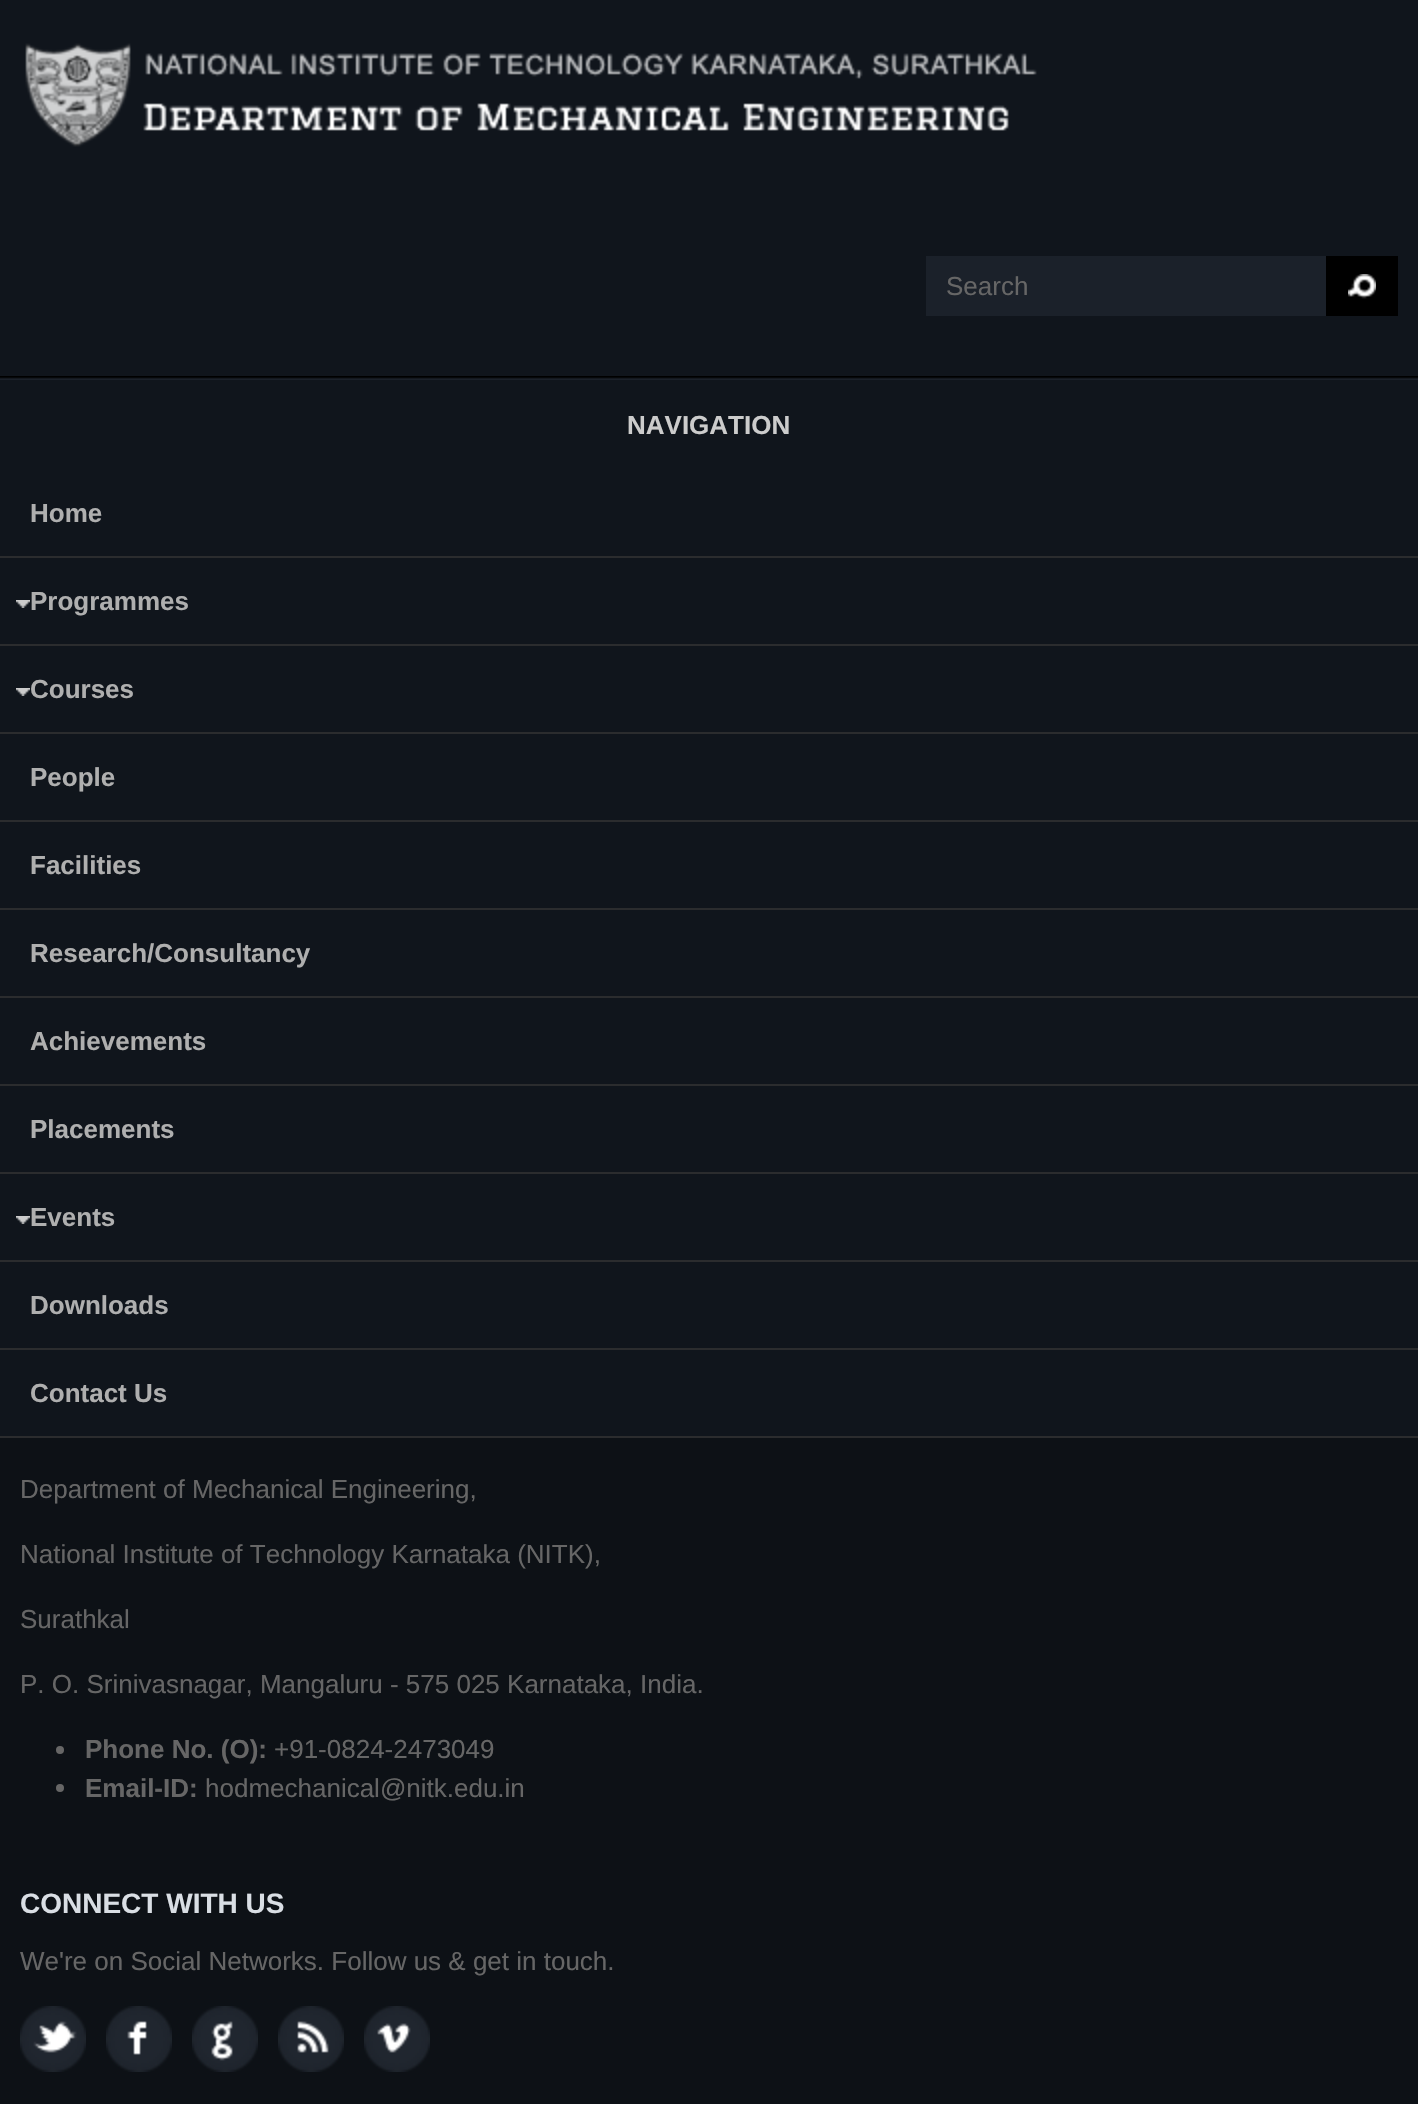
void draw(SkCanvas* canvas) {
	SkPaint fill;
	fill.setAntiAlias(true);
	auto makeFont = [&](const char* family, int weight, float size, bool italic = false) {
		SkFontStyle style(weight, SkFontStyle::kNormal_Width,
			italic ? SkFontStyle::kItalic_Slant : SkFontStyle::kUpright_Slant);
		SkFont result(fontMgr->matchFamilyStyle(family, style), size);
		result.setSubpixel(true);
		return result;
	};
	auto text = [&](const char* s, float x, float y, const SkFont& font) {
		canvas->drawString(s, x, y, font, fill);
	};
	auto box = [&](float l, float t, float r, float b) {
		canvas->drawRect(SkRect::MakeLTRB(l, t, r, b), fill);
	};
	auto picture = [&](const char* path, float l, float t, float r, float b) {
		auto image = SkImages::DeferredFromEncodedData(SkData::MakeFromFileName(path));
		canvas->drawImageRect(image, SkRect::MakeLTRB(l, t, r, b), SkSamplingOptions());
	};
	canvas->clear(0xFF10151C);
	picture("image0.png", 0, 376, 1418, 380);
	picture("image1.png", 25, 43, 1037, 147);
	fill.setColor(0xFF1B212A);
	box(926, 256, 1326, 316);
	fill.setColor(0xFF000000);
	box(1326, 256, 1398, 316);
	picture("image2.png", 1348, 274, 1376, 299);
	fill.setColor(0xFF2B2C2E);
	box(0, 556, 1418, 558);
	box(0, 644, 1418, 646);
	picture("image3.png", 16, 600, 30, 608);
	box(0, 732, 1418, 734);
	picture("image3.png", 16, 688, 30, 696);
	box(0, 820, 1418, 822);
	box(0, 908, 1418, 910);
	box(0, 996, 1418, 998);
	box(0, 1084, 1418, 1086);
	box(0, 1172, 1418, 1174);
	box(0, 1260, 1418, 1262);
	picture("image3.png", 16, 1216, 30, 1224);
	box(0, 1348, 1418, 1350);
	box(0, 1436, 1418, 1438);
	fill.setColor(0xFF0D1116);
	box(0, 1438, 1418, 2104);
	fill.setColor(0xFF666666);
	canvas->drawCircle(60, 1750, 4, fill);
	canvas->drawCircle(60, 1788, 4, fill);
	picture("image4.png", 20, 2006, 86, 2072);
	picture("image5.png", 106, 2006, 172, 2072);
	picture("image6.png", 192, 2006, 258, 2072);
	picture("image7.png", 278, 2006, 344, 2072);
	picture("image8.png", 364, 2006, 430, 2072);
	auto font1 = makeFont("Liberation Sans", 400, 26);
	text("Search", 946, 295, font1);
	auto font2 = makeFont("Liberation Sans", 700, 26);
	fill.setColor(0xFFCCCCCC);
	text("NAVIGATION", 627, 434, font2);
	fill.setColor(0xFFAFAFAF);
	text("Home", 30, 522, font2);
	text("Programmes", 30, 610, font2);
	text("Courses", 30, 698, font2);
	text("People", 30, 786, font2);
	text("Facilities", 30, 874, font2);
	text("Research/Consultancy", 30, 962, font2);
	text("Achievements", 30, 1050, font2);
	text("Placements", 30, 1138, font2);
	text("Events", 30, 1226, font2);
	text("Downloads", 30, 1314, font2);
	text("Contact Us", 30, 1402, font2);
	fill.setColor(0xFF666666);
	text("Department of Mechanical Engineering,", 20, 1498, font1);
	text("National Institute of Technology Karnataka (NITK),", 20, 1563, font1);
	text("Surathkal", 20, 1628, font1);
	text("P. O. Srinivasnagar, Mangaluru - 575 025 Karnataka, India.", 20, 1693, font1);
	text("Phone No. (O):", 85, 1758, font2);
	text("+91-0824-2473049", 274, 1758, font1);
	text("Email-ID:", 85, 1797, font2);
	text("hodmechanical@nitk.edu.in", 205, 1797, font1);
	auto font3 = makeFont("Liberation Sans", 700, 28);
	fill.setColor(0xFFD9DEE4);
	text("CONNECT WITH US", 20, 1913, font3);
	fill.setColor(0xFF666666);
	text("We're on Social Networks. Follow us & get in touch.", 20, 1970, font1);
}
